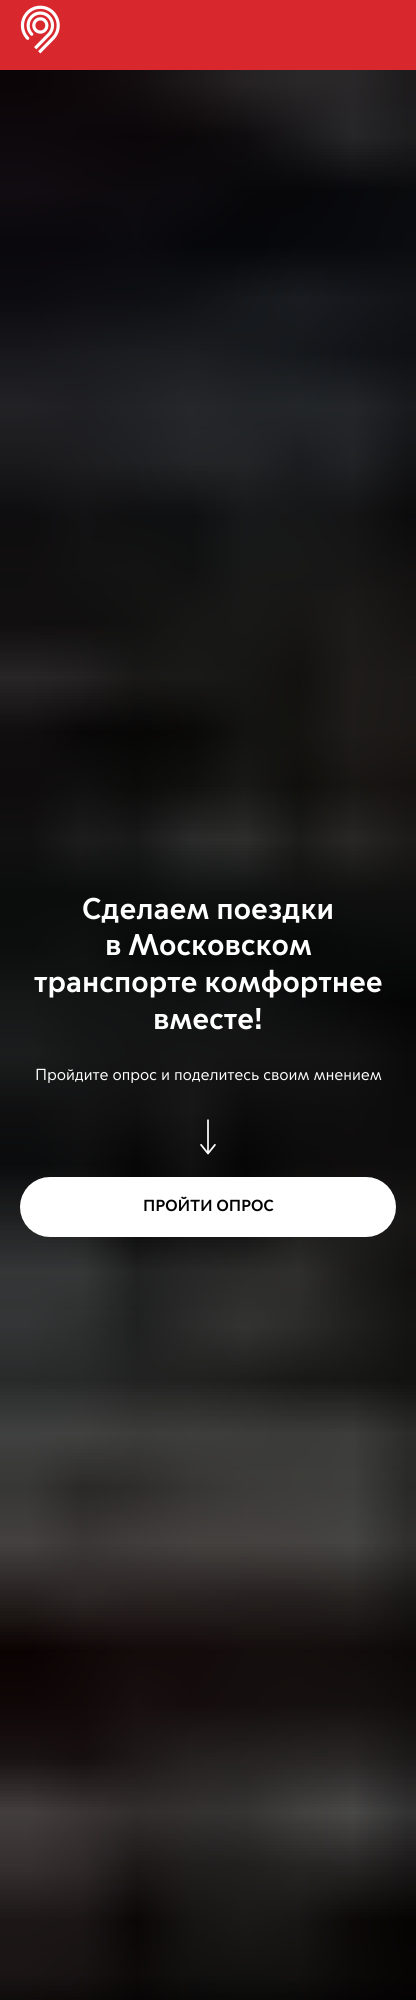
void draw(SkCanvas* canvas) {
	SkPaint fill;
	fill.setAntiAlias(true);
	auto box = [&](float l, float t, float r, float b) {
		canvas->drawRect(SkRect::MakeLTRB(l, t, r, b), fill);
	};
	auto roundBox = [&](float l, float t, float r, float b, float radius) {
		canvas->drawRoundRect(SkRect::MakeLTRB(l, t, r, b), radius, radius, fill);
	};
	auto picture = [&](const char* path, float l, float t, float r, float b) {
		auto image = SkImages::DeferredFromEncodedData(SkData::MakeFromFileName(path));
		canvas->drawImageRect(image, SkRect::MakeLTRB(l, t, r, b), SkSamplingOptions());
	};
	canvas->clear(0xFFD9272E);
	picture("image0.png", 20, 5, 60, 54);
	fill.setColor(0xFF000000);
	box(0, 70, 416, 2000);
	picture("image1.png", 0, 70, 416, 2000);
	{
		const SkColor colors[] = {0xCC000000, 0xB3000000};
		const float stops[] = {0, 1};
		const SkPoint ends[] = {{208, 70}, {208, 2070}};
		fill.setShader(SkGradientShader::MakeLinear(ends, colors, stops, 2, SkTileMode::kClamp));
		fill.setAlpha(255);
	}
	box(0, 70, 416, 2000);
	picture("image2.png", 83, 897, 332, 923);
	picture("image3.png", 107, 934, 312, 956);
	picture("image4.png", 34, 969, 382, 998);
	picture("image5.png", 155, 1008, 261, 1030);
	picture("image6.png", 36, 1068, 382, 1083);
	picture("image7.png", 200, 1119, 216, 1155);
	fill.setShader(nullptr);
	fill.setColor(0xFFFFFFFF);
	roundBox(20, 1177, 396, 1237, 30);
	picture("image8.png", 144, 1196, 274, 1212);
}
